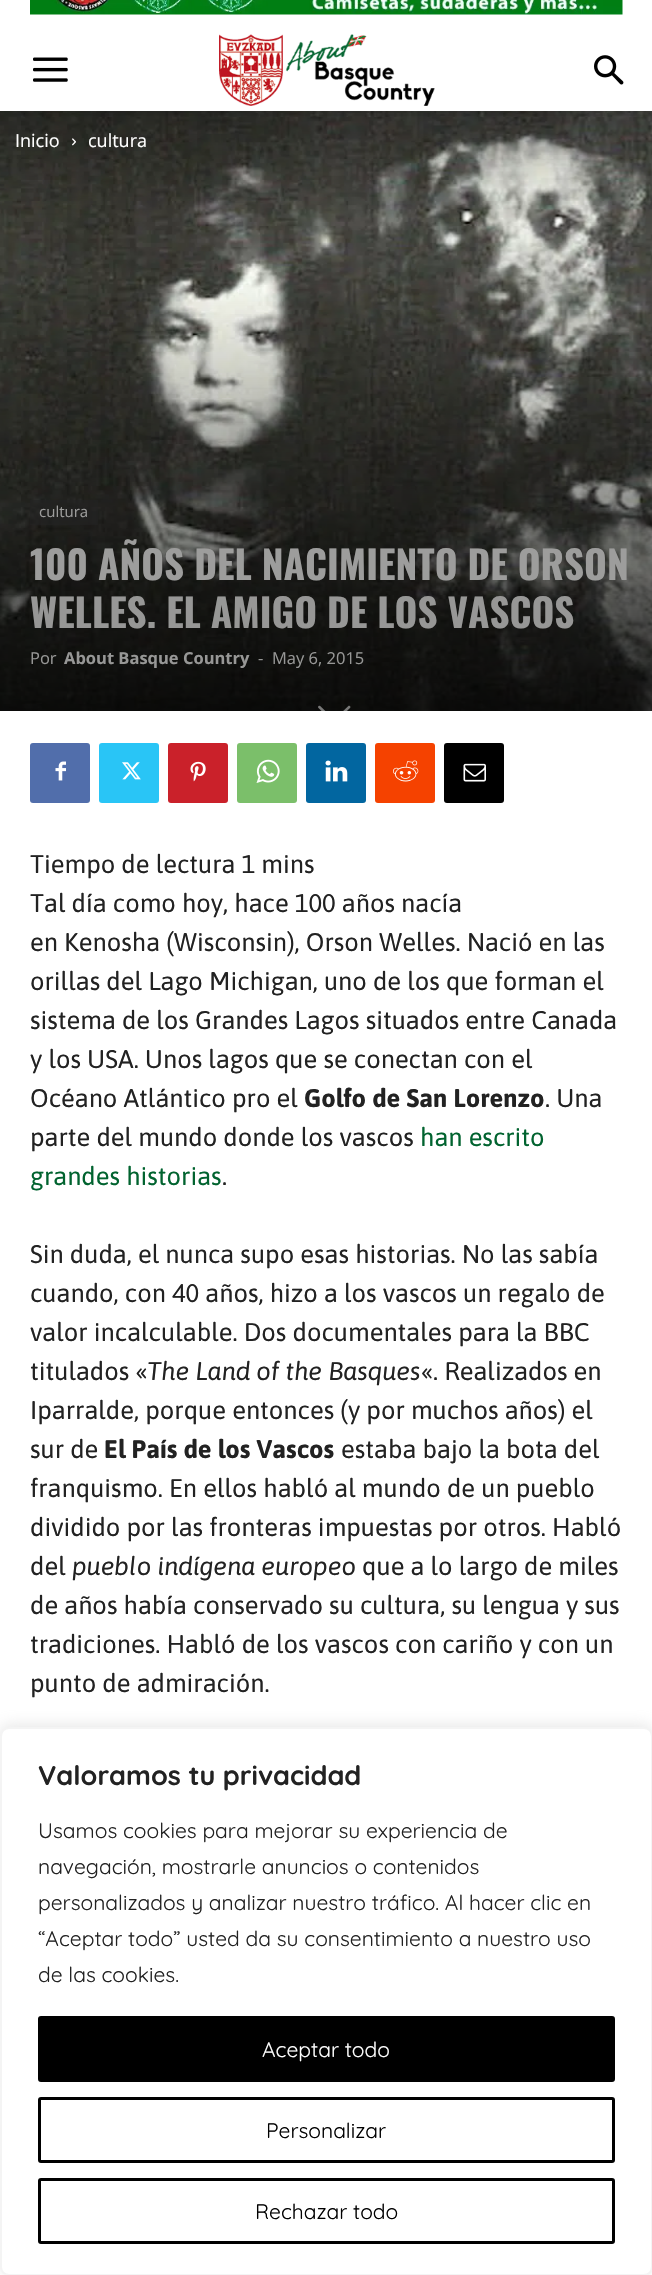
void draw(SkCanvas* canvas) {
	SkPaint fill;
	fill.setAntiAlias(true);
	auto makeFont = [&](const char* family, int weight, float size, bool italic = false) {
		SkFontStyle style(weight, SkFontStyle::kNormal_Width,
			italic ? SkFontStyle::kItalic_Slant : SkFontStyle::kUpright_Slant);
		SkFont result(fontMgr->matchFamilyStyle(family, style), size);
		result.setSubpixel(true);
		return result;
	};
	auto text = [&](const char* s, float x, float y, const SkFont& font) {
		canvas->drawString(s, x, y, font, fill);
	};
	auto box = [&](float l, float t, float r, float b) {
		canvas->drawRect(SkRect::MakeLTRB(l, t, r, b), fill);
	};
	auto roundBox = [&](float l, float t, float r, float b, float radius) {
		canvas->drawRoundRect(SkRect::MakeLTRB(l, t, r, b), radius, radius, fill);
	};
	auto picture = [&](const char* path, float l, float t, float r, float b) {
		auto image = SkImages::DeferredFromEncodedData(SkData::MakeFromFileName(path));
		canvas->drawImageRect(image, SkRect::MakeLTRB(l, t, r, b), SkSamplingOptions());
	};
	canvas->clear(0xFFFFFFFF);
	picture("image0.png", 30, 0, 623, 15);
	picture("image1.png", 33, 57, 68, 82);
	picture("image2.png", 219, 34, 435, 106);
	picture("image3.png", 594, 55, 624, 85);
	picture("image5.png", 0, 111, 652, 711);
	picture("image4.png", 0, 111, 652, 116);
	picture("image6.png", 72, 138, 76, 146);
	fill.setColor(0x8F222222);
	box(30, 500, 98, 525);
	picture("image7.png", 318, 705, 351, 711);
	fill.setColor(0xFF516EAB);
	roundBox(30, 743, 90, 803, 3);
	picture("image8.png", 55, 761, 66, 781);
	fill.setColor(0xFF29C5F6);
	roundBox(99, 743, 159, 803, 3);
	picture("image9.png", 122, 762, 141, 780);
	fill.setColor(0xFFCA212A);
	roundBox(168, 743, 228, 803, 3);
	picture("image10.png", 190, 761, 206, 782);
	fill.setColor(0xFF7BBF6A);
	roundBox(237, 743, 297, 803, 3);
	picture("image11.png", 256, 759, 280, 783);
	fill.setColor(0xFF0266A0);
	roundBox(306, 743, 366, 803, 3);
	picture("image12.png", 325, 760, 348, 782);
	fill.setColor(0xFFF54200);
	roundBox(375, 743, 435, 803, 3);
	picture("image13.png", 393, 760, 419, 782);
	fill.setColor(0xFF000000);
	roundBox(444, 743, 504, 803, 3);
	picture("image14.png", 463, 763, 486, 782);
	fill.setColor(0x4DACABAB);
	fill.setMaskFilter(SkMaskFilter::MakeBlur(kNormal_SkBlurStyle, 7.5f));
	canvas->drawRoundRect(SkRect::MakeLTRB(0, 1725, 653, 2274), 9, 9, fill);
	fill.setMaskFilter(nullptr);
	fill.setColor(0xFFFFFFFF);
	canvas->drawRoundRect(SkRect::MakeLTRB(1, 1728, 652, 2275), 8, 8, fill);
	fill.setStyle(SkPaint::kStroke_Style);
	fill.setStrokeWidth(2);
	fill.setColor(0xFFF4F4F4);
	canvas->drawRoundRect(SkRect::MakeLTRB(1, 1728, 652, 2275), 8, 8, fill);
	fill.setStyle(SkPaint::kFill_Style);
	fill.setColor(0xFF000000);
	canvas->drawRoundRect(SkRect::MakeLTRB(39.5f, 2017.5f, 613.5f, 2080.5f), 1.5f, 1.5f, fill);
	fill.setStyle(SkPaint::kStroke_Style);
	fill.setStrokeWidth(3);
	canvas->drawRoundRect(SkRect::MakeLTRB(39.5f, 2017.5f, 613.5f, 2080.5f), 1.5f, 1.5f, fill);
	canvas->drawRoundRect(SkRect::MakeLTRB(39.5f, 2098.5f, 613.5f, 2161.5f), 1.5f, 1.5f, fill);
	canvas->drawRoundRect(SkRect::MakeLTRB(39.5f, 2179.5f, 613.5f, 2242.5f), 1.5f, 1.5f, fill);
	auto font1 = makeFont("Open Sans", 400, 18);
	fill.setStyle(SkPaint::kFill_Style);
	fill.setColor(0xFFFFFFFF);
	text("Inicio", 15, 147, font1);
	text("cultura", 88, 147, font1);
	auto font2 = makeFont("Open Sans", 400, 15);
	fill.setColor(0xFF9D9D9C);
	text("cultura", 39, 517, font2);
	auto font3 = makeFont("Oswald", 700, 39);
	text("100 AÑOS DEL NACIMIENTO DE ORSON", 30, 580, font3);
	fill.setColor(0xFF979796);
	text("WELLES. EL AMIGO DE LOS VASCOS", 30, 628, font3);
	auto font4 = makeFont("Open Sans", 400, 16.5f);
	text("Por", 30, 664, font4);
	auto font5 = makeFont("Open Sans", 700, 16.5f);
	text("About Basque Country", 64, 664, font5);
	text("-", 258, 664, font4);
	text("May 6, 2015", 272, 664, font4);
	auto font6 = makeFont("Asap", 400, 25.5f);
	fill.setColor(0xFF222222);
	text("Tiempo de lectura 1 mins", 30, 873, font6);
	text("Tal día como hoy, hace 100 años nacía", 30, 912, font6);
	text("en Kenosha (Wisconsin), Orson Welles. Nació en las", 30, 951, font6);
	text("orillas del Lago Michigan, uno de los que forman el", 30, 990, font6);
	text("sistema de los Grandes Lagos situados entre Canada", 30, 1029, font6);
	text("y los USA. Unos lagos que se conectan con el", 30, 1068, font6);
	text("Océano Atlántico pro el", 30, 1107, font6);
	auto font7 = makeFont("Asap", 700, 25.5f);
	text("Golfo de San Lorenzo", 304, 1107, font7);
	text(". Una", 545, 1107, font6);
	text("parte del mundo donde los vascos", 30, 1146, font6);
	fill.setColor(0xFF01632F);
	text("han escrito", 420, 1146, font6);
	text("grandes historias", 30, 1185, font6);
	fill.setColor(0xFF222222);
	text(".", 222, 1185, font6);
	text("Sin duda, el nunca supo esas historias. No las sabía", 30, 1263, font6);
	text("cuando, con 40 años, hizo a los vascos un regalo de", 30, 1302, font6);
	text("valor incalculable. Dos documentales para la BBC", 30, 1341, font6);
	text("titulados «", 30, 1380, font6);
	auto font8 = makeFont("Asap", 400, 25.5f, true);
	text("The Land of the Basques", 147, 1380, font8);
	text("«. Realizados en", 421, 1380, font6);
	text("Iparralde, porque entonces (y por muchos años) el", 30, 1419, font6);
	text("sur de", 30, 1458, font6);
	text("El País de los Vascos", 104, 1458, font7);
	text("estaba bajo la bota del", 341, 1458, font6);
	text("franquismo. En ellos habló al mundo de un pueblo", 30, 1497, font6);
	text("dividido por las fronteras impuestas por otros. Habló", 30, 1536, font6);
	text("del", 30, 1575, font6);
	text("pueblo indígena europeo", 72, 1575, font8);
	text("que a lo largo de miles", 362, 1575, font6);
	text("de años había conservado su cultura, su lengua y sus", 30, 1614, font6);
	text("tradiciones. Habló de los vascos con cariño y con un", 30, 1653, font6);
	text("punto de admiración.", 30, 1692, font6);
	auto font9 = makeFont("Quicksand", 700, 27);
	text("Valoramos tu privacidad", 38, 1785, font9);
	auto font10 = makeFont("Quicksand", 400, 21);
	text("Usamos cookies para mejorar su experiencia de", 38, 1838, font10);
	text("navegación, mostrarle anuncios o contenidos", 38, 1874, font10);
	text("personalizados y analizar nuestro tráfico. Al hacer clic en", 38, 1910, font10);
	text("“Aceptar todo” usted da su consentimiento a nuestro uso", 38, 1946, font10);
	text("de las cookies.", 38, 1982, font10);
	fill.setColor(0xFFFFFFFF);
	text("Aceptar todo", 262, 2057, font10);
	fill.setColor(0xFF000000);
	text("Personalizar", 266, 2138, font10);
	text("Rechazar todo", 255, 2219, font10);
}
